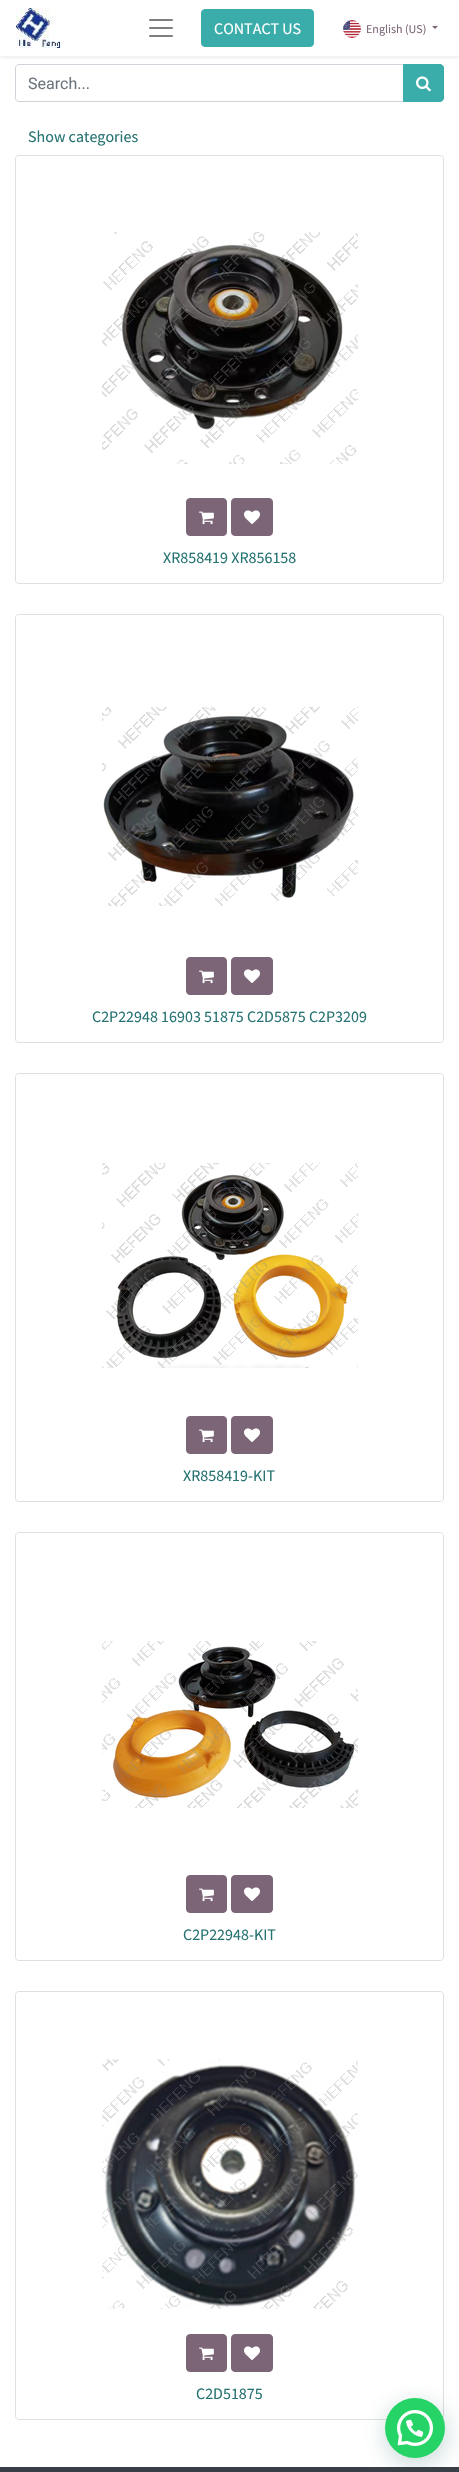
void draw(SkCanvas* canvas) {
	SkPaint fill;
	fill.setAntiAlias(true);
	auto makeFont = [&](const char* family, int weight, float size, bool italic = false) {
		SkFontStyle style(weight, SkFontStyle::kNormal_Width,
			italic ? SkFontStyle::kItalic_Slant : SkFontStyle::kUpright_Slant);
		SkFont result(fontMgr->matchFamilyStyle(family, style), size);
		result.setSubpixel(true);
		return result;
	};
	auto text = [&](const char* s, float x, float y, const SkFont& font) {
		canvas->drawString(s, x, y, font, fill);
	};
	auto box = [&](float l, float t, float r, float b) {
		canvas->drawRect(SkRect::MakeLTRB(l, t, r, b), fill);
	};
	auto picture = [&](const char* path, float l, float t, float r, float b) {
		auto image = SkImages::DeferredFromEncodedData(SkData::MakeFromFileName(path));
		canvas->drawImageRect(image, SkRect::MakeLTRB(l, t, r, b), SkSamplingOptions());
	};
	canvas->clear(0xFFFFFFFF);
	fill.setStyle(SkPaint::kStroke_Style);
	fill.setStrokeWidth(1);
	fill.setColor(0xFFCED4DA);
	canvas->drawPath(SkPathBuilder().moveTo(19, 64.5f).lineTo(403.5f, 64.5f).lineTo(403.5f, 101.5f).lineTo(19, 101.5f).cubicTo(17, 101.5f, 15.5f, 100, 15.5f, 98).lineTo(15.5f, 68).cubicTo(15.5f, 66, 17, 64.5f, 19, 64.5f).close().detach(), fill);
	fill.setStyle(SkPaint::kFill_Style);
	fill.setColor(0xFF3AADAA);
	canvas->drawPath(SkPathBuilder().moveTo(403.5f, 64.5f).lineTo(440, 64.5f).cubicTo(442, 64.5f, 443.5f, 66, 443.5f, 68).lineTo(443.5f, 98).cubicTo(443.5f, 100, 442, 101.5f, 440, 101.5f).lineTo(403.5f, 101.5f).close().detach(), fill);
	fill.setStyle(SkPaint::kStroke_Style);
	canvas->drawPath(SkPathBuilder().moveTo(403.5f, 64.5f).lineTo(440, 64.5f).cubicTo(442, 64.5f, 443.5f, 66, 443.5f, 68).lineTo(443.5f, 98).cubicTo(443.5f, 100, 442, 101.5f, 440, 101.5f).lineTo(403.5f, 101.5f).close().detach(), fill);
	canvas->save();
	canvas->clipRect(SkRect::MakeLTRB(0, 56, 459, 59));
	fill.setStyle(SkPaint::kFill_Style);
	fill.setColor(0x12000000);
	fill.setMaskFilter(SkMaskFilter::MakeBlur(kNormal_SkBlurStyle, 2));
	canvas->drawRect(SkRect::MakeLTRB(0, 2, 459, 58), fill);
	fill.setMaskFilter(nullptr);
	canvas->restore();
	picture("image0.png", 16, 8, 61, 48);
	picture("image1.png", 149, 19, 173, 37);
	fill.setColor(0xFF3AADAA);
	canvas->drawRoundRect(SkRect::MakeLTRB(201.5f, 9.5f, 313.5f, 46.5f), 3.5f, 3.5f, fill);
	fill.setStyle(SkPaint::kStroke_Style);
	canvas->drawRoundRect(SkRect::MakeLTRB(201.5f, 9.5f, 313.5f, 46.5f), 3.5f, 3.5f, fill);
	picture("image2.png", 343, 20, 361, 38);
	fill.setStyle(SkPaint::kFill_Style);
	fill.setColor(0xFF7C6576);
	canvas->drawPath(SkPathBuilder().moveTo(432, 26).lineTo(438, 26).lineTo(435, 29).close().detach(), fill);
	picture("image3.png", 416, 76, 431, 92);
	fill.setStyle(SkPaint::kStroke_Style);
	fill.setColor(0xFFDFDFDF);
	canvas->drawRoundRect(SkRect::MakeLTRB(15.5f, 155.5f, 443.5f, 583.5f), 3.5f, 3.5f, fill);
	fill.setStyle(SkPaint::kFill_Style);
	fill.setColor(0xE6FFFFFF);
	canvas->drawPath(SkPathBuilder().moveTo(19, 156).lineTo(440, 156).cubicTo(441.5f, 156, 443, 157.5f, 443, 159).lineTo(443, 540).lineTo(16, 540).lineTo(16, 159).cubicTo(16, 157.5f, 17.5f, 156, 19, 156).close().detach(), fill);
	picture("image4.png", 102, 232, 358, 464);
	canvas->drawPath(SkPathBuilder().moveTo(16, 540).lineTo(443, 540).lineTo(443, 580).cubicTo(443, 581.5f, 441.5f, 583, 440, 583).lineTo(19, 583).cubicTo(17.5f, 583, 16, 581.5f, 16, 580).close().detach(), fill);
	fill.setColor(0xFF7C6576);
	canvas->drawRoundRect(SkRect::MakeLTRB(186.5f, 498.5f, 226.5f, 535.5f), 3.5f, 3.5f, fill);
	fill.setStyle(SkPaint::kStroke_Style);
	canvas->drawRoundRect(SkRect::MakeLTRB(186.5f, 498.5f, 226.5f, 535.5f), 3.5f, 3.5f, fill);
	picture("image5.png", 199, 511, 214, 525);
	fill.setStyle(SkPaint::kFill_Style);
	canvas->drawRoundRect(SkRect::MakeLTRB(231.5f, 498.5f, 272.5f, 535.5f), 3.5f, 3.5f, fill);
	fill.setStyle(SkPaint::kStroke_Style);
	canvas->drawRoundRect(SkRect::MakeLTRB(231.5f, 498.5f, 272.5f, 535.5f), 3.5f, 3.5f, fill);
	picture("image6.png", 244, 510, 260, 524);
	fill.setColor(0xFFDFDFDF);
	canvas->drawRoundRect(SkRect::MakeLTRB(15.5f, 614.5f, 443.5f, 1042.5f), 3.5f, 3.5f, fill);
	fill.setStyle(SkPaint::kFill_Style);
	fill.setColor(0xE6FFFFFF);
	canvas->drawPath(SkPathBuilder().moveTo(19, 615).lineTo(440, 615).cubicTo(441.5f, 615, 443, 616.5f, 443, 618).lineTo(443, 999).lineTo(16, 999).lineTo(16, 618).cubicTo(16, 616.5f, 17.5f, 615, 19, 615).close().detach(), fill);
	picture("image7.png", 102, 707, 358, 906);
	canvas->drawPath(SkPathBuilder().moveTo(16, 999).lineTo(443, 999).lineTo(443, 1039).cubicTo(443, 1040.5f, 441.5f, 1042, 440, 1042).lineTo(19, 1042).cubicTo(17.5f, 1042, 16, 1040.5f, 16, 1039).close().detach(), fill);
	fill.setColor(0xFF7C6576);
	canvas->drawRoundRect(SkRect::MakeLTRB(186.5f, 957.5f, 226.5f, 994.5f), 3.5f, 3.5f, fill);
	fill.setStyle(SkPaint::kStroke_Style);
	canvas->drawRoundRect(SkRect::MakeLTRB(186.5f, 957.5f, 226.5f, 994.5f), 3.5f, 3.5f, fill);
	picture("image5.png", 199, 970, 214, 984);
	fill.setStyle(SkPaint::kFill_Style);
	canvas->drawRoundRect(SkRect::MakeLTRB(231.5f, 957.5f, 272.5f, 994.5f), 3.5f, 3.5f, fill);
	fill.setStyle(SkPaint::kStroke_Style);
	canvas->drawRoundRect(SkRect::MakeLTRB(231.5f, 957.5f, 272.5f, 994.5f), 3.5f, 3.5f, fill);
	picture("image6.png", 244, 969, 260, 983);
	fill.setColor(0xFFDFDFDF);
	canvas->drawRoundRect(SkRect::MakeLTRB(15.5f, 1073.5f, 443.5f, 1501.5f), 3.5f, 3.5f, fill);
	fill.setStyle(SkPaint::kFill_Style);
	fill.setColor(0xE6FFFFFF);
	canvas->drawPath(SkPathBuilder().moveTo(19, 1074).lineTo(440, 1074).cubicTo(441.5f, 1074, 443, 1075.5f, 443, 1077).lineTo(443, 1458).lineTo(16, 1458).lineTo(16, 1077).cubicTo(16, 1075.5f, 17.5f, 1074, 19, 1074).close().detach(), fill);
	picture("image8.png", 102, 1163, 358, 1368);
	canvas->drawPath(SkPathBuilder().moveTo(16, 1458).lineTo(443, 1458).lineTo(443, 1498).cubicTo(443, 1499.5f, 441.5f, 1501, 440, 1501).lineTo(19, 1501).cubicTo(17.5f, 1501, 16, 1499.5f, 16, 1498).close().detach(), fill);
	fill.setColor(0xFF7C6576);
	canvas->drawRoundRect(SkRect::MakeLTRB(186.5f, 1416.5f, 226.5f, 1453.5f), 3.5f, 3.5f, fill);
	fill.setStyle(SkPaint::kStroke_Style);
	canvas->drawRoundRect(SkRect::MakeLTRB(186.5f, 1416.5f, 226.5f, 1453.5f), 3.5f, 3.5f, fill);
	picture("image5.png", 199, 1429, 214, 1443);
	fill.setStyle(SkPaint::kFill_Style);
	canvas->drawRoundRect(SkRect::MakeLTRB(231.5f, 1416.5f, 272.5f, 1453.5f), 3.5f, 3.5f, fill);
	fill.setStyle(SkPaint::kStroke_Style);
	canvas->drawRoundRect(SkRect::MakeLTRB(231.5f, 1416.5f, 272.5f, 1453.5f), 3.5f, 3.5f, fill);
	picture("image6.png", 244, 1428, 260, 1442);
	fill.setColor(0xFFDFDFDF);
	canvas->drawRoundRect(SkRect::MakeLTRB(15.5f, 1532.5f, 443.5f, 1960.5f), 3.5f, 3.5f, fill);
	fill.setStyle(SkPaint::kFill_Style);
	fill.setColor(0xE6FFFFFF);
	canvas->drawPath(SkPathBuilder().moveTo(19, 1533).lineTo(440, 1533).cubicTo(441.5f, 1533, 443, 1534.5f, 443, 1536).lineTo(443, 1917).lineTo(16, 1917).lineTo(16, 1536).cubicTo(16, 1534.5f, 17.5f, 1533, 19, 1533).close().detach(), fill);
	picture("image9.png", 102, 1641, 358, 1808);
	canvas->drawPath(SkPathBuilder().moveTo(16, 1917).lineTo(443, 1917).lineTo(443, 1957).cubicTo(443, 1958.5f, 441.5f, 1960, 440, 1960).lineTo(19, 1960).cubicTo(17.5f, 1960, 16, 1958.5f, 16, 1957).close().detach(), fill);
	fill.setColor(0xFF7C6576);
	canvas->drawRoundRect(SkRect::MakeLTRB(186.5f, 1875.5f, 226.5f, 1912.5f), 3.5f, 3.5f, fill);
	fill.setStyle(SkPaint::kStroke_Style);
	canvas->drawRoundRect(SkRect::MakeLTRB(186.5f, 1875.5f, 226.5f, 1912.5f), 3.5f, 3.5f, fill);
	picture("image5.png", 199, 1888, 214, 1902);
	fill.setStyle(SkPaint::kFill_Style);
	canvas->drawRoundRect(SkRect::MakeLTRB(231.5f, 1875.5f, 272.5f, 1912.5f), 3.5f, 3.5f, fill);
	fill.setStyle(SkPaint::kStroke_Style);
	canvas->drawRoundRect(SkRect::MakeLTRB(231.5f, 1875.5f, 272.5f, 1912.5f), 3.5f, 3.5f, fill);
	picture("image6.png", 244, 1887, 260, 1901);
	fill.setColor(0xFFDFDFDF);
	canvas->drawRoundRect(SkRect::MakeLTRB(15.5f, 1991.5f, 443.5f, 2419.5f), 3.5f, 3.5f, fill);
	fill.setStyle(SkPaint::kFill_Style);
	fill.setColor(0xE6FFFFFF);
	canvas->drawPath(SkPathBuilder().moveTo(19, 1992).lineTo(440, 1992).cubicTo(441.5f, 1992, 443, 1993.5f, 443, 1995).lineTo(443, 2376).lineTo(16, 2376).lineTo(16, 1995).cubicTo(16, 1993.5f, 17.5f, 1992, 19, 1992).close().detach(), fill);
	picture("image10.png", 102, 2059, 358, 2309);
	canvas->drawPath(SkPathBuilder().moveTo(16, 2376).lineTo(443, 2376).lineTo(443, 2416).cubicTo(443, 2417.5f, 441.5f, 2419, 440, 2419).lineTo(19, 2419).cubicTo(17.5f, 2419, 16, 2417.5f, 16, 2416).close().detach(), fill);
	fill.setColor(0xFF7C6576);
	canvas->drawRoundRect(SkRect::MakeLTRB(186.5f, 2334.5f, 226.5f, 2371.5f), 3.5f, 3.5f, fill);
	fill.setStyle(SkPaint::kStroke_Style);
	canvas->drawRoundRect(SkRect::MakeLTRB(186.5f, 2334.5f, 226.5f, 2371.5f), 3.5f, 3.5f, fill);
	picture("image5.png", 199, 2347, 214, 2361);
	fill.setStyle(SkPaint::kFill_Style);
	canvas->drawRoundRect(SkRect::MakeLTRB(231.5f, 2334.5f, 272.5f, 2371.5f), 3.5f, 3.5f, fill);
	fill.setStyle(SkPaint::kStroke_Style);
	canvas->drawRoundRect(SkRect::MakeLTRB(231.5f, 2334.5f, 272.5f, 2371.5f), 3.5f, 3.5f, fill);
	picture("image6.png", 244, 2346, 260, 2360);
	fill.setStyle(SkPaint::kFill_Style);
	fill.setColor(0xFF383E45);
	box(0, 2467, 459, 2472);
	fill.setColor(0x3D075E54);
	fill.setMaskFilter(SkMaskFilter::MakeBlur(kNormal_SkBlurStyle, 12));
	canvas->drawRoundRect(SkRect::MakeLTRB(386, 2404, 446, 2464), 30, 30, fill);
	fill.setMaskFilter(nullptr);
	fill.setColor(0xFF25D366);
	canvas->drawCircle(415, 2428, 30, fill);
	picture("image11.png", 397, 2410, 433, 2446);
	auto font1 = makeFont("Source Sans Pro", 400, 16);
	fill.setColor(0xFFFFFFFF);
	text("CONTACT US", 214, 34, font1);
	auto font2 = makeFont("Source Sans Pro", 400, 12);
	fill.setColor(0xFF7C6576);
	text("English (US)", 366, 33, font2);
	auto font3 = makeFont("Roboto", 400, 16);
	fill.setColor(0xFF6C757D);
	text("Search...", 28, 89, font3);
	fill.setColor(0xFF267372);
	text("Show categories", 28, 142, font1);
	text("XR858419 XR856158", 163, 563, font1);
	text("C2P22948 16903 51875 C2D5875 C2P3209", 92, 1022, font1);
	text("XR858419-KIT", 183, 1481, font1);
	text("C2P22948-KIT", 183, 1940, font1);
	text("C2D51875", 196, 2399, font1);
}
